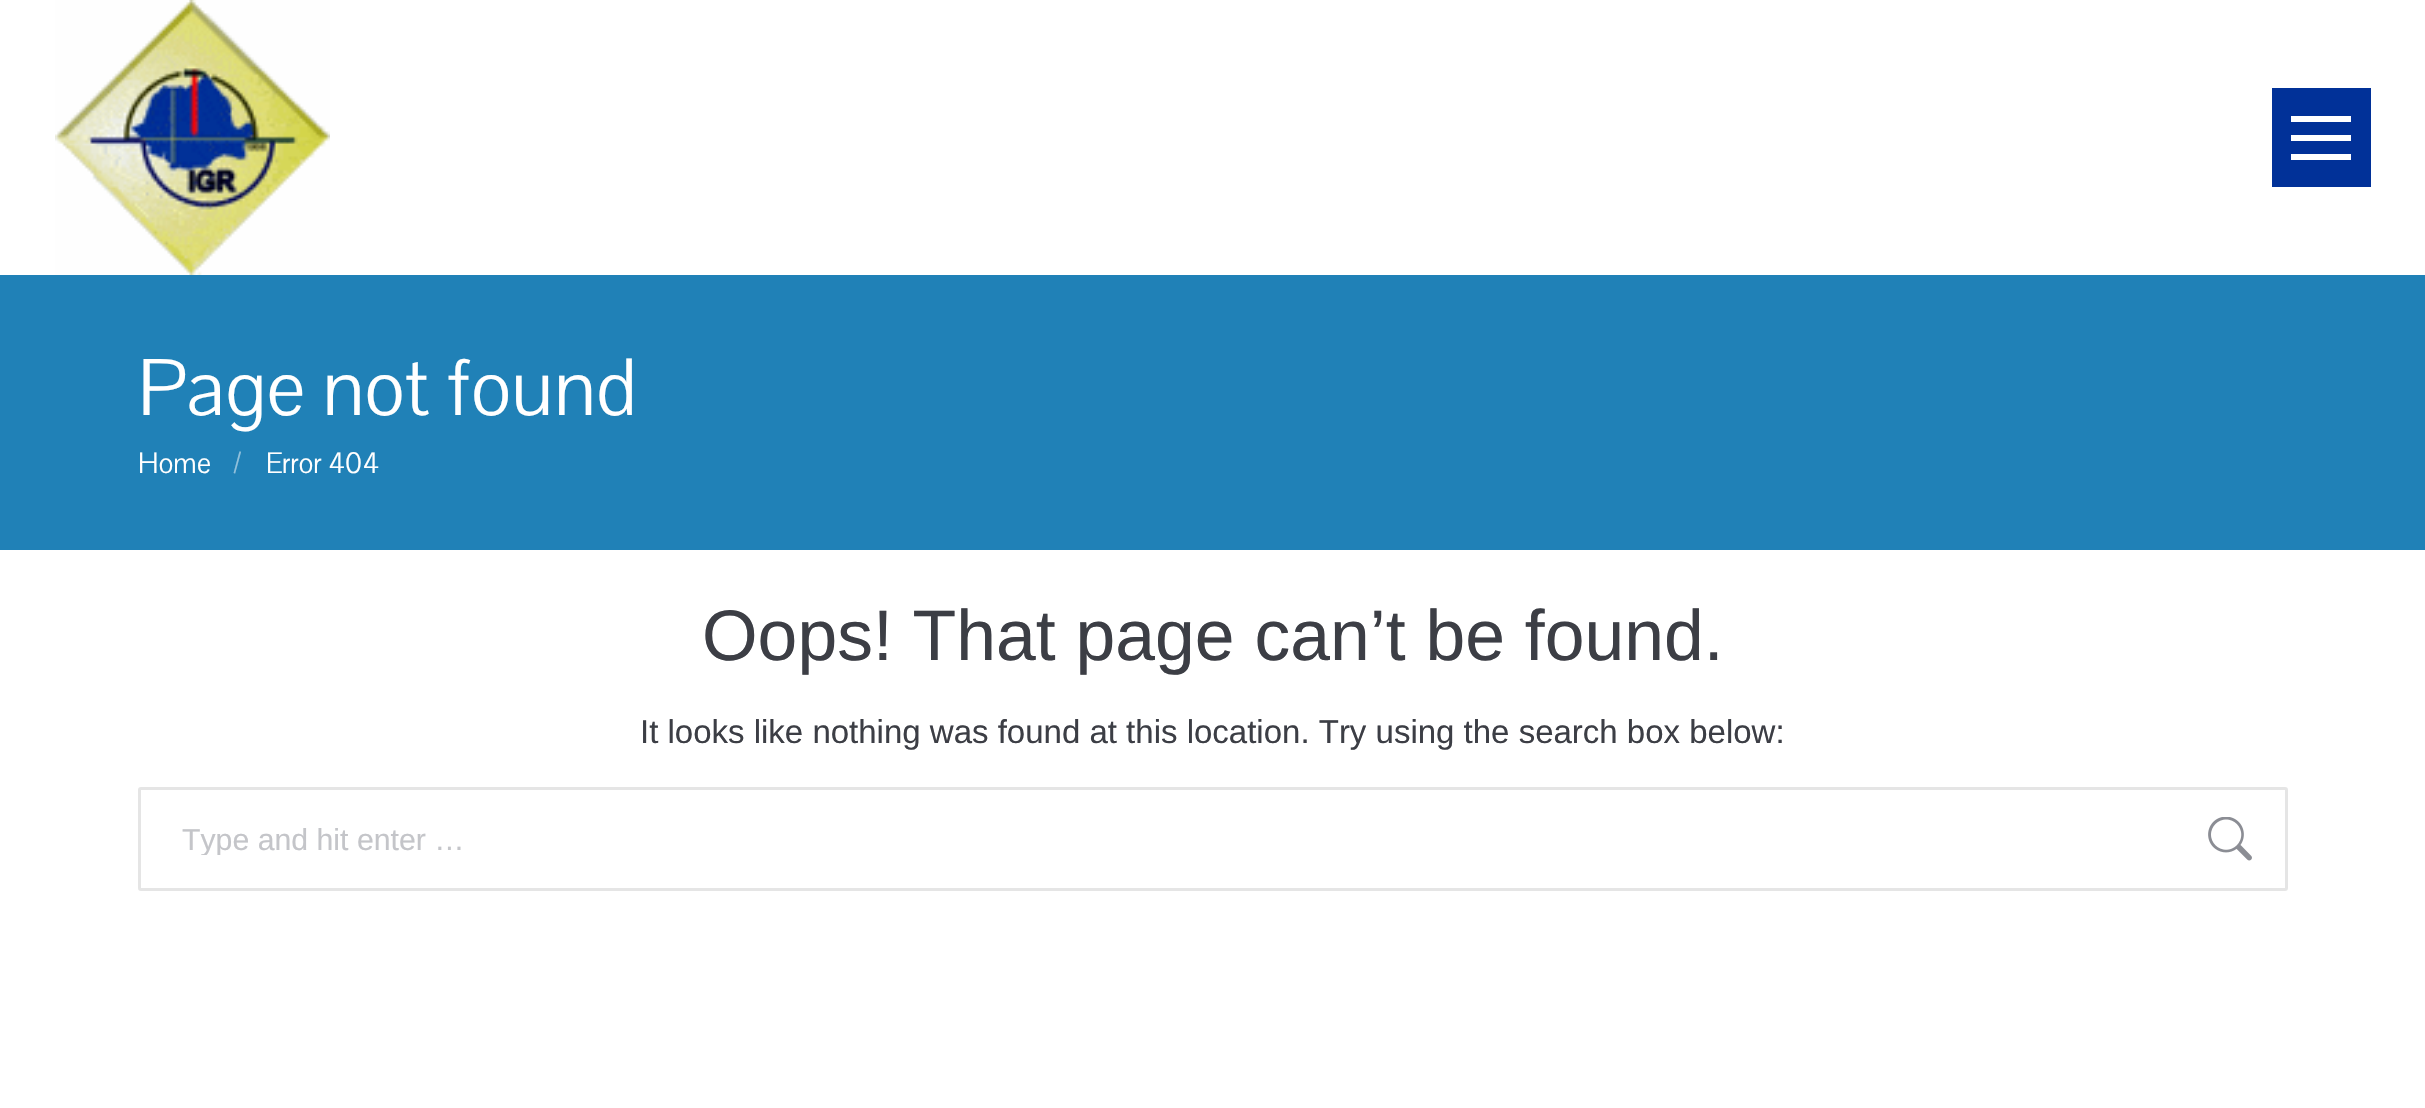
void draw(SkCanvas* canvas) {
	SkPaint fill;
	fill.setAntiAlias(true);
	auto makeFont = [&](const char* family, int weight, float size, bool italic = false) {
		SkFontStyle style(weight, SkFontStyle::kNormal_Width,
			italic ? SkFontStyle::kItalic_Slant : SkFontStyle::kUpright_Slant);
		SkFont result(fontMgr->matchFamilyStyle(family, style), size);
		result.setSubpixel(true);
		return result;
	};
	auto text = [&](const char* s, float x, float y, const SkFont& font) {
		canvas->drawString(s, x, y, font, fill);
	};
	auto box = [&](float l, float t, float r, float b) {
		canvas->drawRect(SkRect::MakeLTRB(l, t, r, b), fill);
	};
	auto picture = [&](const char* path, float l, float t, float r, float b) {
		auto image = SkImages::DeferredFromEncodedData(SkData::MakeFromFileName(path));
		canvas->drawImageRect(image, SkRect::MakeLTRB(l, t, r, b), SkSamplingOptions());
	};
	canvas->clear(0xFFFFFFFF);
	picture("image0.png", 55, 0, 330, 275);
	fill.setColor(0xFF013198);
	box(2272, 88, 2371, 187);
	fill.setColor(0xFFFFFFFF);
	box(2291, 116, 2351, 122);
	box(2291, 135, 2351, 141);
	box(2291, 154, 2351, 160);
	fill.setColor(0xFF2081B7);
	box(0, 275, 2425, 550);
	fill.setStyle(SkPaint::kStroke_Style);
	fill.setStrokeWidth(3);
	fill.setColor(0xFFE5E5E5);
	canvas->drawRoundRect(SkRect::MakeLTRB(139.5f, 788.5f, 2286.5f, 889.5f), 1.5f, 1.5f, fill);
	picture("image1.png", 2208, 817, 2252, 861);
	auto font1 = makeFont("Pavanam", 400, 82.5f);
	fill.setStyle(SkPaint::kFill_Style);
	fill.setColor(0xFFFFFFFF);
	text("Page not found", 138, 415, font1);
	auto font2 = makeFont("Pavanam", 400, 30.25f);
	text("Home", 138, 473, font2);
	fill.setColor(0xFF90C0DB);
	text("/", 233, 473, font2);
	fill.setColor(0xFFFFFFFF);
	text("Error 404", 266, 473, font2);
	auto font3 = makeFont("Liberation Sans", 400, 71.5f);
	fill.setColor(0xFF3C3E45);
	text("Oops! That page can’t be found.", 702, 660, font3);
	auto font4 = makeFont("Liberation Sans", 400, 33);
	text("It looks like nothing was found at this location. Try using the search box below:", 640, 743, font4);
	canvas->save();
	canvas->clipRect(SkRect::MakeLTRB(182, 822, 2203, 855));
	auto font5 = makeFont("Liberation Sans", 400, 30.25f);
	fill.setColor(0xFFC4C5C9);
	text("Type and hit enter …", 182, 850, font5);
	canvas->restore();
}
